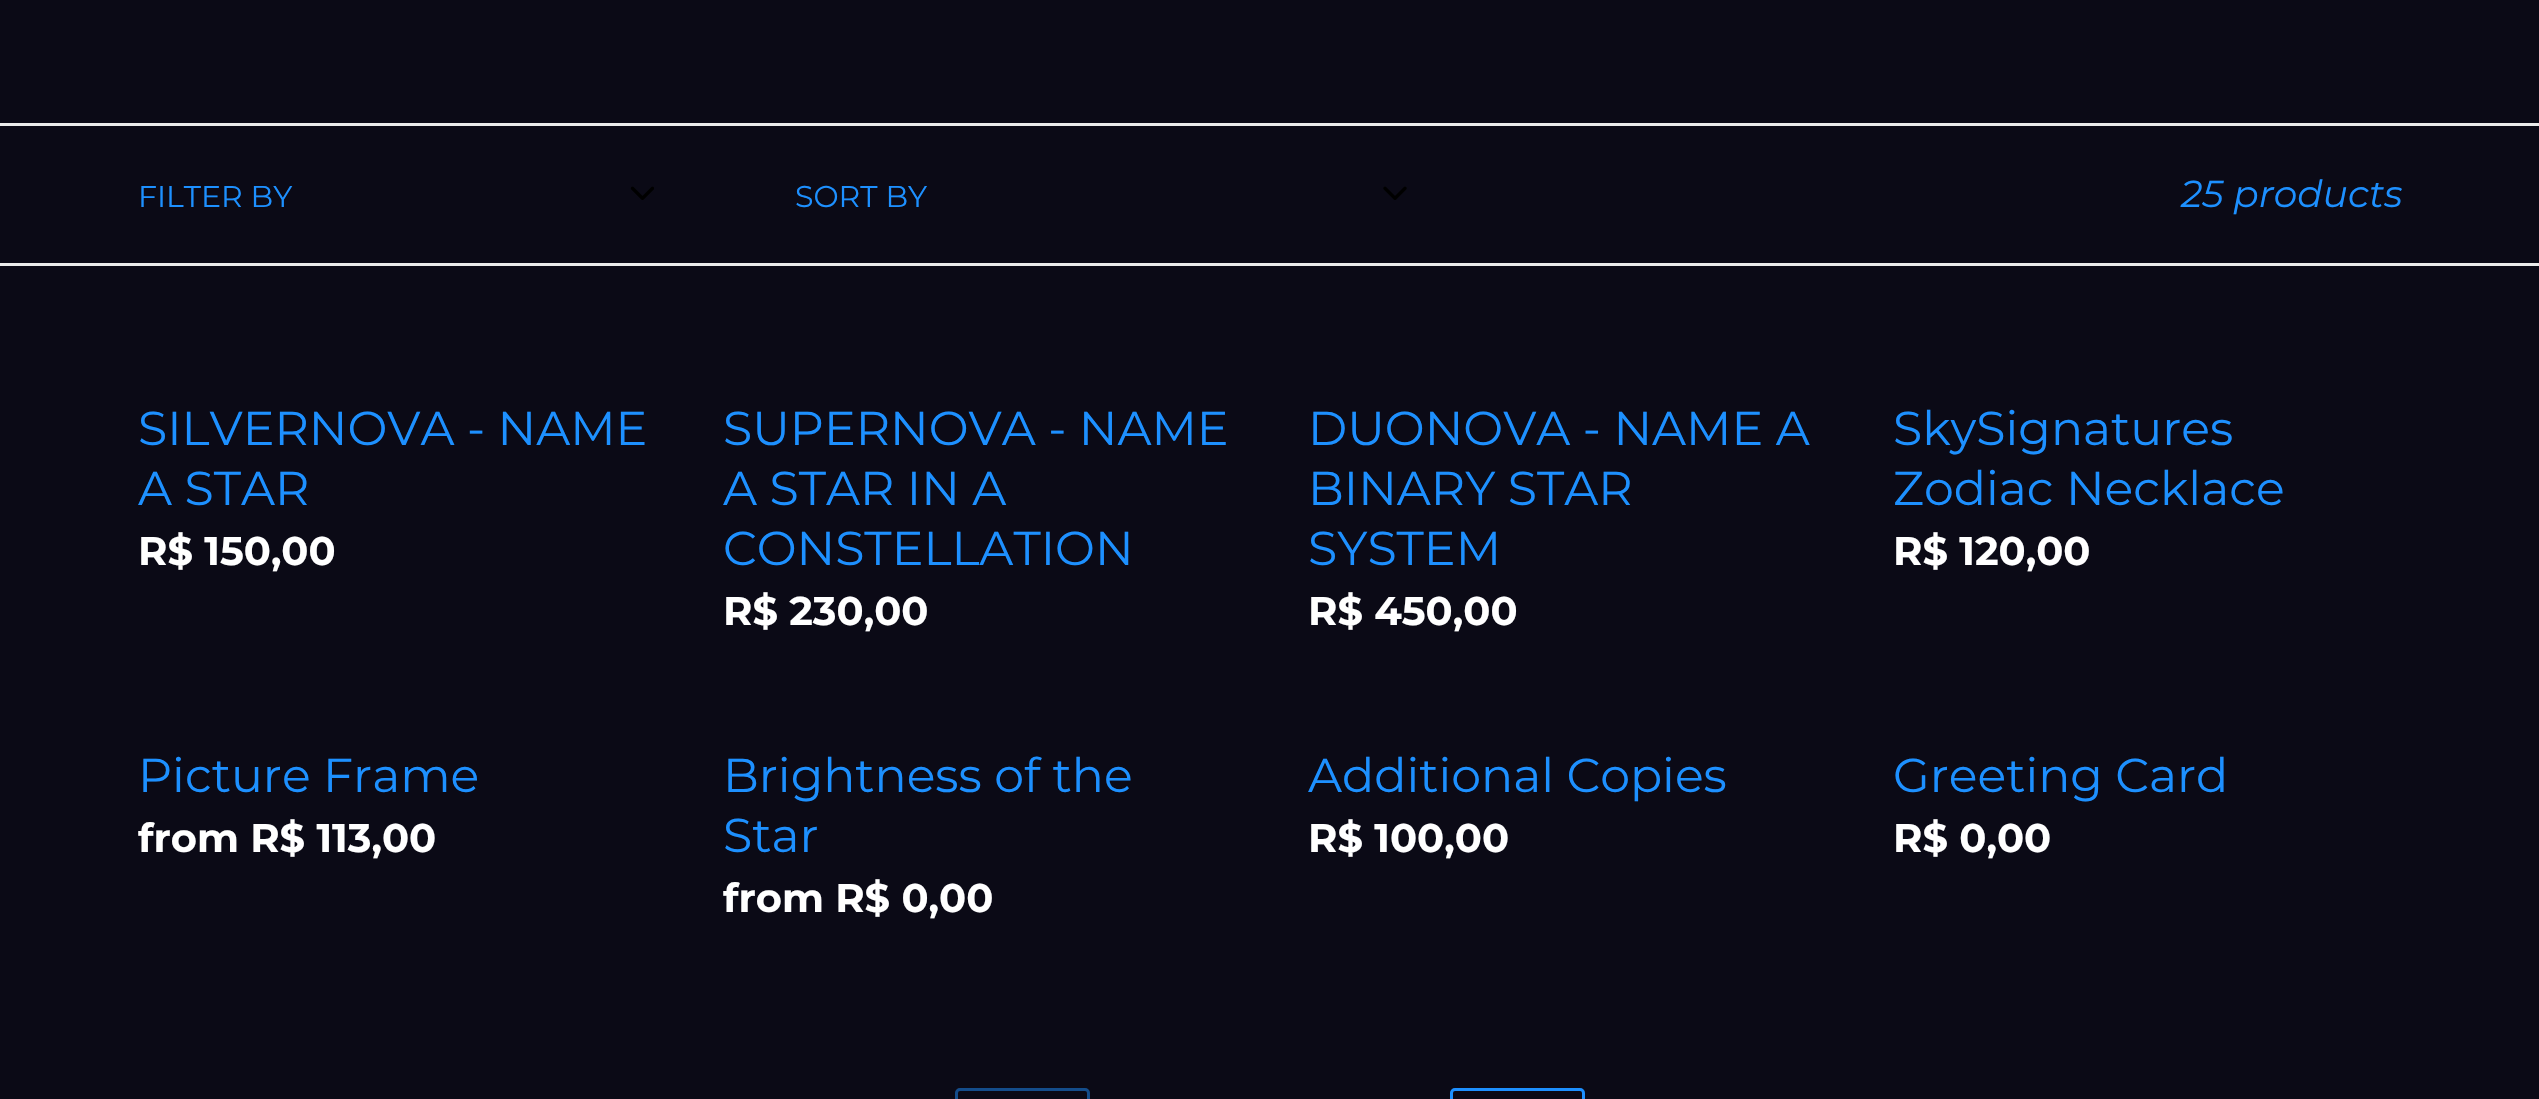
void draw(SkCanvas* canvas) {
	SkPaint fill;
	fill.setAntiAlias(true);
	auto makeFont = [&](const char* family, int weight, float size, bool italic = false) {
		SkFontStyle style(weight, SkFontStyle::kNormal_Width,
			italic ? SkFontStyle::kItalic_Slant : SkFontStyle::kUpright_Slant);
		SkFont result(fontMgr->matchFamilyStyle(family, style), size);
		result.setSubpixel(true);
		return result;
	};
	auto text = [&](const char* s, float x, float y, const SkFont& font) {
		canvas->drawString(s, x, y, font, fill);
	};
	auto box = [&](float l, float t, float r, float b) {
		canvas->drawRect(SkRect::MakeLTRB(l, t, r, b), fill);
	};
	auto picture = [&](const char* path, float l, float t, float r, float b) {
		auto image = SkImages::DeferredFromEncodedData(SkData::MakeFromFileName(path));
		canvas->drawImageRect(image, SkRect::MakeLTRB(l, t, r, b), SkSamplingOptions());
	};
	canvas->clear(0xFF0B0A16);
	fill.setColor(0xFFEBEBEB);
	box(0, 123, 2539, 126);
	box(0, 263, 2539, 266);
	picture("image0.png", 630, 186, 654, 200);
	picture("image1.png", 1383, 186, 1407, 200);
	fill.setStyle(SkPaint::kStroke_Style);
	fill.setStrokeWidth(3);
	fill.setColor(0xFF144D8B);
	canvas->drawRoundRect(SkRect::MakeLTRB(956.5f, 1089.5f, 1088.5f, 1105.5f), 3.5f, 3.5f, fill);
	fill.setColor(0xFF1D90FF);
	canvas->drawRoundRect(SkRect::MakeLTRB(1451.5f, 1089.5f, 1583.5f, 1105.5f), 3.5f, 3.5f, fill);
	auto font1 = makeFont("Montserrat", 400, 30);
	fill.setStyle(SkPaint::kFill_Style);
	text("FILTER BY", 138, 207, font1);
	text("SORT BY", 795, 207, font1);
	auto font2 = makeFont("Montserrat", 400, 37.5f, true);
	text("25 products", 2181, 207, font2);
	auto font3 = makeFont("Montserrat", 400, 47.5f);
	text("SILVERNOVA - NAME", 138, 445, font3);
	text("A STAR", 138, 505, font3);
	auto font4 = makeFont("Montserrat", 700, 40);
	fill.setColor(0xFFFFFFFF);
	text("R$ 150,00", 138, 565, font4);
	fill.setColor(0xFF1D90FF);
	text("SUPERNOVA - NAME", 723, 445, font3);
	text("A STAR IN A", 723, 505, font3);
	text("CONSTELLATION", 723, 565, font3);
	fill.setColor(0xFFFFFFFF);
	text("R$ 230,00", 723, 625, font4);
	fill.setColor(0xFF1D90FF);
	text("DUONOVA - NAME A", 1308, 445, font3);
	text("BINARY STAR", 1308, 505, font3);
	text("SYSTEM", 1308, 565, font3);
	fill.setColor(0xFFFFFFFF);
	text("R$ 450,00", 1308, 625, font4);
	fill.setColor(0xFF1D90FF);
	text("SkySignatures", 1893, 445, font3);
	text("Zodiac Necklace", 1893, 505, font3);
	fill.setColor(0xFFFFFFFF);
	text("R$ 120,00", 1893, 565, font4);
	fill.setColor(0xFF1D90FF);
	text("Picture Frame", 138, 792, font3);
	fill.setColor(0xFFFFFFFF);
	text("from R$ 113,00", 138, 852, font4);
	fill.setColor(0xFF1D90FF);
	text("Brightness of the", 723, 792, font3);
	text("Star", 723, 852, font3);
	fill.setColor(0xFFFFFFFF);
	text("from R$ 0,00", 723, 912, font4);
	fill.setColor(0xFF1D90FF);
	text("Additional Copies", 1308, 792, font3);
	fill.setColor(0xFFFFFFFF);
	text("R$ 100,00", 1308, 852, font4);
	fill.setColor(0xFF1D90FF);
	text("Greeting Card", 1893, 792, font3);
	fill.setColor(0xFFFFFFFF);
	text("R$ 0,00", 1893, 852, font4);
}
